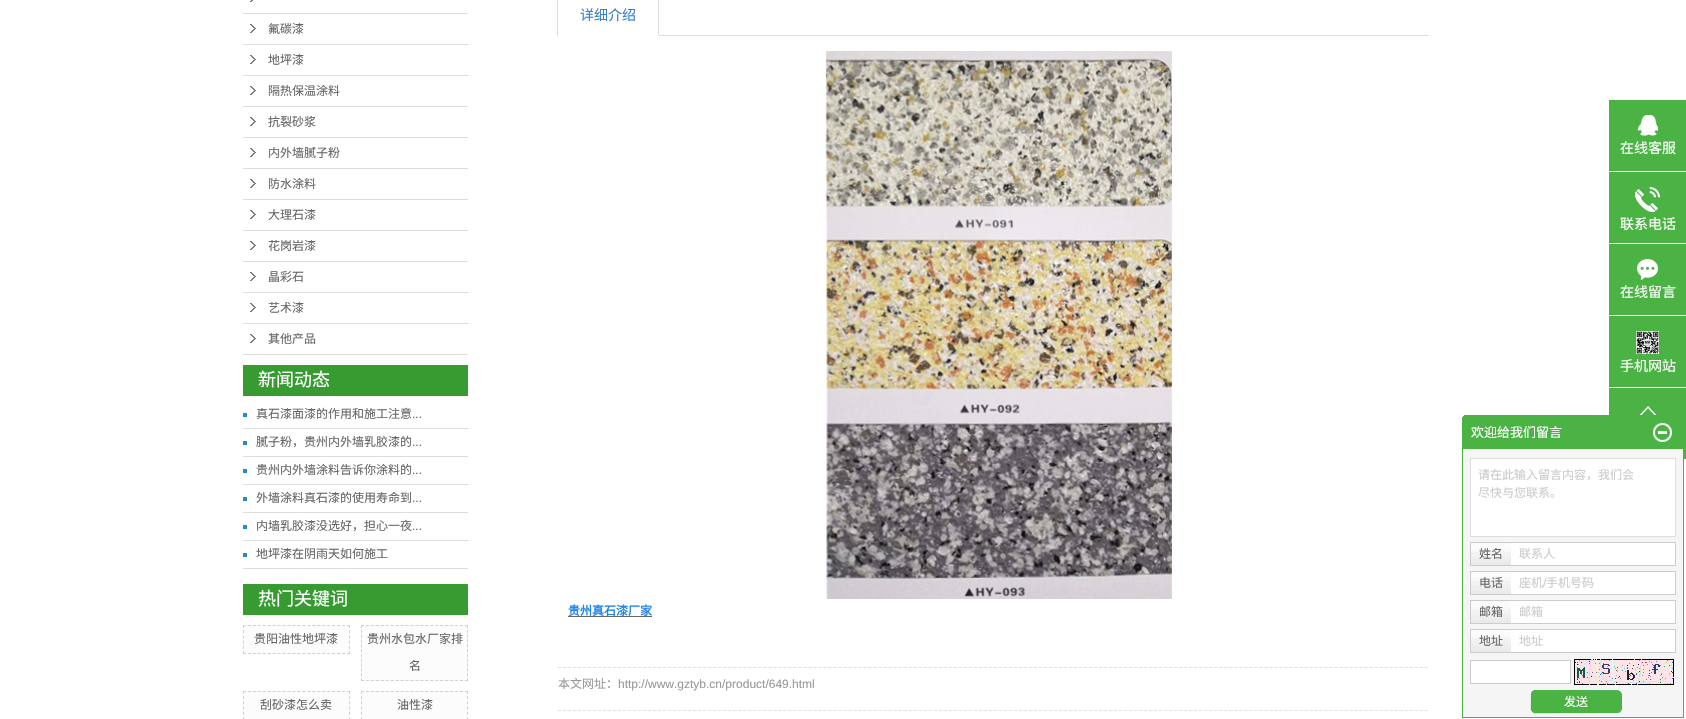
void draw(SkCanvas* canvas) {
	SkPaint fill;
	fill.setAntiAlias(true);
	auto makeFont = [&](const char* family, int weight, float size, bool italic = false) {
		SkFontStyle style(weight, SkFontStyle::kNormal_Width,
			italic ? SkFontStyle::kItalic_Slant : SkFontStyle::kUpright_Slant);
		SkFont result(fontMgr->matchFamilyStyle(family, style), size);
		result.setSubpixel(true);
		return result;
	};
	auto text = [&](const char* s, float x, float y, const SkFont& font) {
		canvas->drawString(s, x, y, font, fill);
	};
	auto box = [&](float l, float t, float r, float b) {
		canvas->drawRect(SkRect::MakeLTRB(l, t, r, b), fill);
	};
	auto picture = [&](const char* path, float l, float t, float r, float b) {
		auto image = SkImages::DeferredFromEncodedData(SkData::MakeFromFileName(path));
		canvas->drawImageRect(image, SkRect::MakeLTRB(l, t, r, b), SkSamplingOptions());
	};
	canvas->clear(0xFFFFFFFF);
	picture("image0.png", 250, 0, 253, 2);
	fill.setColor(0xFFDDDDDD);
	box(243, 13, 468, 14);
	picture("image1.png", 250, 24, 256, 33);
	box(243, 44, 468, 45);
	picture("image1.png", 250, 55, 256, 64);
	box(243, 75, 468, 76);
	picture("image1.png", 250, 86, 256, 95);
	box(243, 106, 468, 107);
	picture("image1.png", 250, 117, 256, 126);
	box(243, 137, 468, 138);
	picture("image1.png", 250, 148, 256, 157);
	box(243, 168, 468, 169);
	picture("image1.png", 250, 179, 256, 188);
	box(243, 199, 468, 200);
	picture("image1.png", 250, 210, 256, 219);
	box(243, 230, 468, 231);
	picture("image1.png", 250, 241, 256, 250);
	box(243, 261, 468, 262);
	picture("image1.png", 250, 272, 256, 281);
	box(243, 292, 468, 293);
	picture("image1.png", 250, 303, 256, 312);
	box(243, 323, 468, 324);
	picture("image1.png", 250, 334, 256, 343);
	box(243, 354, 468, 355);
	fill.setColor(0xFF389B32);
	box(243, 365, 468, 396);
	picture("image2.png", 243, 413, 247, 417);
	fill.setColor(0xFFDDDDDD);
	box(243, 428, 468, 429);
	picture("image2.png", 243, 441, 247, 445);
	box(243, 456, 468, 457);
	picture("image2.png", 243, 469, 247, 473);
	box(243, 484, 468, 485);
	picture("image2.png", 243, 497, 247, 501);
	box(243, 512, 468, 513);
	picture("image2.png", 243, 525, 247, 529);
	box(243, 540, 468, 541);
	picture("image2.png", 243, 553, 247, 557);
	box(243, 568, 468, 569);
	fill.setColor(0xFF389B32);
	box(243, 584, 468, 615);
	fill.setColor(0xFFFCFCFC);
	box(243, 625, 350, 654);
	fill.setStyle(SkPaint::kStroke_Style);
	fill.setStrokeWidth(1);
	fill.setColor(0xFFD0D0D0);
	fill.setPathEffect(SkDashPathEffect::Make({{3, 1.95f}}, 0));
	canvas->drawPath(SkPathBuilder().moveTo(243, 625.5f).lineTo(350, 625.5f).detach(), fill);
	fill.setPathEffect(nullptr);
	fill.setPathEffect(SkDashPathEffect::Make({{3, 2.2f}}, 0));
	canvas->drawPath(SkPathBuilder().moveTo(349.5f, 625).lineTo(349.5f, 654).detach(), fill);
	fill.setPathEffect(nullptr);
	fill.setPathEffect(SkDashPathEffect::Make({{3, 1.95f}}, 0));
	canvas->drawPath(SkPathBuilder().moveTo(243, 653.5f).lineTo(350, 653.5f).detach(), fill);
	fill.setPathEffect(nullptr);
	fill.setPathEffect(SkDashPathEffect::Make({{3, 2.2f}}, 0));
	canvas->drawPath(SkPathBuilder().moveTo(243.5f, 625).lineTo(243.5f, 654).detach(), fill);
	fill.setPathEffect(nullptr);
	fill.setStyle(SkPaint::kFill_Style);
	fill.setColor(0xFFFCFCFC);
	box(361, 625, 468, 681);
	fill.setStyle(SkPaint::kStroke_Style);
	fill.setColor(0xFFD0D0D0);
	fill.setPathEffect(SkDashPathEffect::Make({{3, 1.95f}}, 0));
	canvas->drawPath(SkPathBuilder().moveTo(361, 625.5f).lineTo(468, 625.5f).detach(), fill);
	fill.setPathEffect(nullptr);
	fill.setPathEffect(SkDashPathEffect::Make({{3, 1.82f}}, 0));
	canvas->drawPath(SkPathBuilder().moveTo(467.5f, 625).lineTo(467.5f, 681).detach(), fill);
	fill.setPathEffect(nullptr);
	fill.setPathEffect(SkDashPathEffect::Make({{3, 1.95f}}, 0));
	canvas->drawPath(SkPathBuilder().moveTo(361, 680.5f).lineTo(468, 680.5f).detach(), fill);
	fill.setPathEffect(nullptr);
	fill.setPathEffect(SkDashPathEffect::Make({{3, 1.82f}}, 0));
	canvas->drawPath(SkPathBuilder().moveTo(361.5f, 625).lineTo(361.5f, 681).detach(), fill);
	fill.setPathEffect(nullptr);
	fill.setStyle(SkPaint::kFill_Style);
	fill.setColor(0xFFFCFCFC);
	box(243, 691, 350, 719);
	fill.setStyle(SkPaint::kStroke_Style);
	fill.setColor(0xFFD0D0D0);
	fill.setPathEffect(SkDashPathEffect::Make({{3, 1.95f}}, 0));
	canvas->drawPath(SkPathBuilder().moveTo(243, 691.5f).lineTo(350, 691.5f).detach(), fill);
	fill.setPathEffect(nullptr);
	fill.setPathEffect(SkDashPathEffect::Make({{3, 2.2f}}, 0));
	canvas->drawPath(SkPathBuilder().moveTo(349.5f, 691).lineTo(349.5f, 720).detach(), fill);
	fill.setPathEffect(nullptr);
	fill.setPathEffect(SkDashPathEffect::Make({{3, 2.2f}}, 0));
	canvas->drawPath(SkPathBuilder().moveTo(243.5f, 691).lineTo(243.5f, 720).detach(), fill);
	fill.setPathEffect(nullptr);
	fill.setStyle(SkPaint::kFill_Style);
	fill.setColor(0xFFFCFCFC);
	box(361, 691, 468, 719);
	fill.setStyle(SkPaint::kStroke_Style);
	fill.setColor(0xFFD0D0D0);
	fill.setPathEffect(SkDashPathEffect::Make({{3, 1.95f}}, 0));
	canvas->drawPath(SkPathBuilder().moveTo(361, 691.5f).lineTo(468, 691.5f).detach(), fill);
	fill.setPathEffect(nullptr);
	fill.setPathEffect(SkDashPathEffect::Make({{3, 2.2f}}, 0));
	canvas->drawPath(SkPathBuilder().moveTo(467.5f, 691).lineTo(467.5f, 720).detach(), fill);
	fill.setPathEffect(nullptr);
	fill.setPathEffect(SkDashPathEffect::Make({{3, 2.2f}}, 0));
	canvas->drawPath(SkPathBuilder().moveTo(361.5f, 691).lineTo(361.5f, 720).detach(), fill);
	fill.setPathEffect(nullptr);
	fill.setStyle(SkPaint::kFill_Style);
	fill.setColor(0xFFDDDDDD);
	box(659, 35, 1428, 36);
	canvas->drawPath(SkPathBuilder().moveTo(659, -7).lineTo(659, 36).lineTo(658, 35).lineTo(658, -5).close().detach(), fill);
	fill.setColor(0xFFFFFFFF);
	box(658, 35, 659, 36);
	fill.setColor(0xFFDDDDDD);
	canvas->drawPath(SkPathBuilder().moveTo(557, 36).lineTo(557, -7).lineTo(558, -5).lineTo(558, 35).close().detach(), fill);
	picture("image3.png", 825, 51, 1172, 599);
	fill.setColor(0xFF666666);
	box(568, 616, 652, 617);
	fill.setStyle(SkPaint::kStroke_Style);
	fill.setColor(0xFFE0E1DC);
	fill.setPathEffect(SkDashPathEffect::Make({{3, 2.01f}}, 0));
	canvas->drawPath(SkPathBuilder().moveTo(558, 667.5f).lineTo(1428, 667.5f).detach(), fill);
	fill.setPathEffect(nullptr);
	fill.setPathEffect(SkDashPathEffect::Make({{3, 2.01f}}, 0));
	canvas->drawPath(SkPathBuilder().moveTo(558, 710.5f).lineTo(1428, 710.5f).detach(), fill);
	fill.setPathEffect(nullptr);
	fill.setStyle(SkPaint::kFill_Style);
	fill.setColor(0xFF4AB344);
	box(1609, 100, 1686, 171);
	picture("image4.png", 1638, 115, 1658, 136);
	box(1609, 172, 1686, 243);
	picture("image5.png", 1635, 187, 1660, 212);
	box(1609, 244, 1686, 315);
	picture("image6.png", 1637, 259, 1658, 280);
	box(1609, 316, 1686, 387);
	picture("image7.png", 1636, 331, 1659, 354);
	box(1609, 388, 1686, 459);
	picture("image8.png", 1640, 406, 1657, 415);
	box(1464, 415, 1609, 416);
	box(1463, 416, 1609, 417);
	box(1462, 417, 1609, 448);
	picture("image9.png", 1653, 423, 1672, 442);
	fill.setColor(0xFFF5F5F5);
	canvas->drawRect(SkRect::MakeLTRB(1462.5f, 448.5f, 1683.5f, 717.5f), fill);
	fill.setStyle(SkPaint::kStroke_Style);
	fill.setColor(0xFF4AB344);
	canvas->drawRect(SkRect::MakeLTRB(1462.5f, 448.5f, 1683.5f, 717.5f), fill);
	fill.setStyle(SkPaint::kFill_Style);
	fill.setColor(0xFFFFFFFF);
	canvas->drawRect(SkRect::MakeLTRB(1470.5f, 458.5f, 1675.5f, 536.5f), fill);
	fill.setStyle(SkPaint::kStroke_Style);
	fill.setColor(0xFFDEDEDE);
	canvas->drawRect(SkRect::MakeLTRB(1470.5f, 458.5f, 1675.5f, 536.5f), fill);
	fill.setStyle(SkPaint::kFill_Style);
	fill.setColor(0xFFFFFFFF);
	box(1511, 543, 1675, 565);
	fill.setStyle(SkPaint::kStroke_Style);
	fill.setColor(0xFFCCCCCC);
	canvas->drawRect(SkRect::MakeLTRB(1470.5f, 542.5f, 1675.5f, 565.5f), fill);
	picture("image10.png", 1471, 543, 1511, 565);
	fill.setStyle(SkPaint::kFill_Style);
	fill.setColor(0xFFFFFFFF);
	box(1511, 572, 1675, 594);
	fill.setStyle(SkPaint::kStroke_Style);
	fill.setColor(0xFFCCCCCC);
	canvas->drawRect(SkRect::MakeLTRB(1470.5f, 571.5f, 1675.5f, 594.5f), fill);
	picture("image10.png", 1471, 572, 1511, 594);
	fill.setStyle(SkPaint::kFill_Style);
	fill.setColor(0xFFFFFFFF);
	box(1511, 601, 1675, 623);
	fill.setStyle(SkPaint::kStroke_Style);
	fill.setColor(0xFFCCCCCC);
	canvas->drawRect(SkRect::MakeLTRB(1470.5f, 600.5f, 1675.5f, 623.5f), fill);
	picture("image10.png", 1471, 601, 1511, 623);
	fill.setStyle(SkPaint::kFill_Style);
	fill.setColor(0xFFFFFFFF);
	box(1511, 630, 1675, 652);
	fill.setStyle(SkPaint::kStroke_Style);
	fill.setColor(0xFFCCCCCC);
	canvas->drawRect(SkRect::MakeLTRB(1470.5f, 629.5f, 1675.5f, 652.5f), fill);
	picture("image10.png", 1471, 630, 1511, 652);
	fill.setStyle(SkPaint::kFill_Style);
	fill.setColor(0xFFFFFFFF);
	canvas->drawRect(SkRect::MakeLTRB(1470.5f, 660.5f, 1570.5f, 683.5f), fill);
	fill.setStyle(SkPaint::kStroke_Style);
	fill.setColor(0xFFCCCCCC);
	canvas->drawRect(SkRect::MakeLTRB(1470.5f, 660.5f, 1570.5f, 683.5f), fill);
	picture("image11.png", 1574, 659, 1674, 685);
	picture("image12.png", 1530, 690, 1622, 714);
	auto font1 = makeFont("Noto Sans CJK SC", 400, 12);
	fill.setStyle(SkPaint::kFill_Style);
	fill.setColor(0xFF666666);
	text("氟碳漆", 268, 33, font1);
	text("地坪漆", 268, 64, font1);
	text("隔热保温涂料", 268, 95, font1);
	text("抗裂砂浆", 268, 126, font1);
	text("内外墙腻子粉", 268, 157, font1);
	text("防水涂料", 268, 188, font1);
	text("大理石漆", 268, 219, font1);
	text("花岗岩漆", 268, 250, font1);
	text("晶彩石", 268, 281, font1);
	text("艺术漆", 268, 312, font1);
	text("其他产品", 268, 343, font1);
	auto font2 = makeFont("Noto Sans CJK SC", 400, 18);
	fill.setColor(0xFFFFFFFF);
	text("新闻动态", 258, 386, font2);
	fill.setColor(0xFF666666);
	text("真石漆面漆的作用和施工注意", 256, 418, font1);
	auto font3 = makeFont("Liberation Sans", 400, 12);
	text("...", 412, 418, font3);
	text("腻子粉，贵州内外墙乳胶漆的", 256, 446, font1);
	text("...", 412, 446, font3);
	text("贵州内外墙涂料告诉你涂料的", 256, 474, font1);
	text("...", 412, 474, font3);
	text("外墙涂料真石漆的使用寿命到", 256, 502, font1);
	text("...", 412, 502, font3);
	text("内墙乳胶漆没选好，担心一夜", 256, 530, font1);
	text("...", 412, 530, font3);
	text("地坪漆在阴雨天如何施工", 256, 558, font1);
	fill.setColor(0xFFFFFFFF);
	text("热门关键词", 258, 605, font2);
	fill.setColor(0xFF666666);
	text("贵阳油性地坪漆", 254, 643, font1);
	text("贵州水包水厂家排", 367, 643, font1);
	text("名", 409, 670, font1);
	text("刮砂漆怎么卖", 260, 709, font1);
	text("油性漆", 397, 709, font1);
	auto font4 = makeFont("Noto Sans CJK SC", 400, 14);
	fill.setColor(0xFF3480CE);
	text("详细介绍", 580, 20, font4);
	auto font5 = makeFont("Noto Sans CJK SC", 700, 12);
	fill.setColor(0xFF2086EE);
	text("贵州真石漆厂家", 568, 615, font5);
	fill.setColor(0xFF999999);
	text("本文网址：", 558, 688, font1);
	text("http://www.gztyb.cn/product/649.html", 618, 688, font3);
	fill.setColor(0xFFFFFFFF);
	text("在线客服", 1620, 153, font4);
	text("联系电话", 1620, 229, font4);
	text("在线留言", 1620, 297, font4);
	text("手机网站", 1620, 371, font4);
	auto font6 = makeFont("Noto Sans CJK SC", 400, 13);
	text("欢迎给我们留言", 1471, 437, font6);
	fill.setColor(0xFFCCCCCC);
	text("请在此输入留言内容，我们会", 1478, 479, font1);
	text("尽快与您联系。", 1478, 497, font1);
	fill.setColor(0xFF666666);
	text("姓名", 1479, 558, font1);
	fill.setColor(0xFFCCCCCC);
	text("联系人", 1519, 558, font1);
	fill.setColor(0xFF666666);
	text("电话", 1479, 587, font1);
	fill.setColor(0xFFCCCCCC);
	text("座机", 1519, 587, font1);
	text("/", 1543, 587, font3);
	text("手机号码", 1546, 587, font1);
	fill.setColor(0xFF666666);
	text("邮箱", 1479, 616, font1);
	fill.setColor(0xFFCCCCCC);
	text("邮箱", 1519, 616, font1);
	fill.setColor(0xFF666666);
	text("地址", 1479, 645, font1);
	fill.setColor(0xFFCCCCCC);
	text("地址", 1519, 645, font1);
	fill.setColor(0xFFFFFFFF);
	text("发送", 1564, 706, font1);
}
